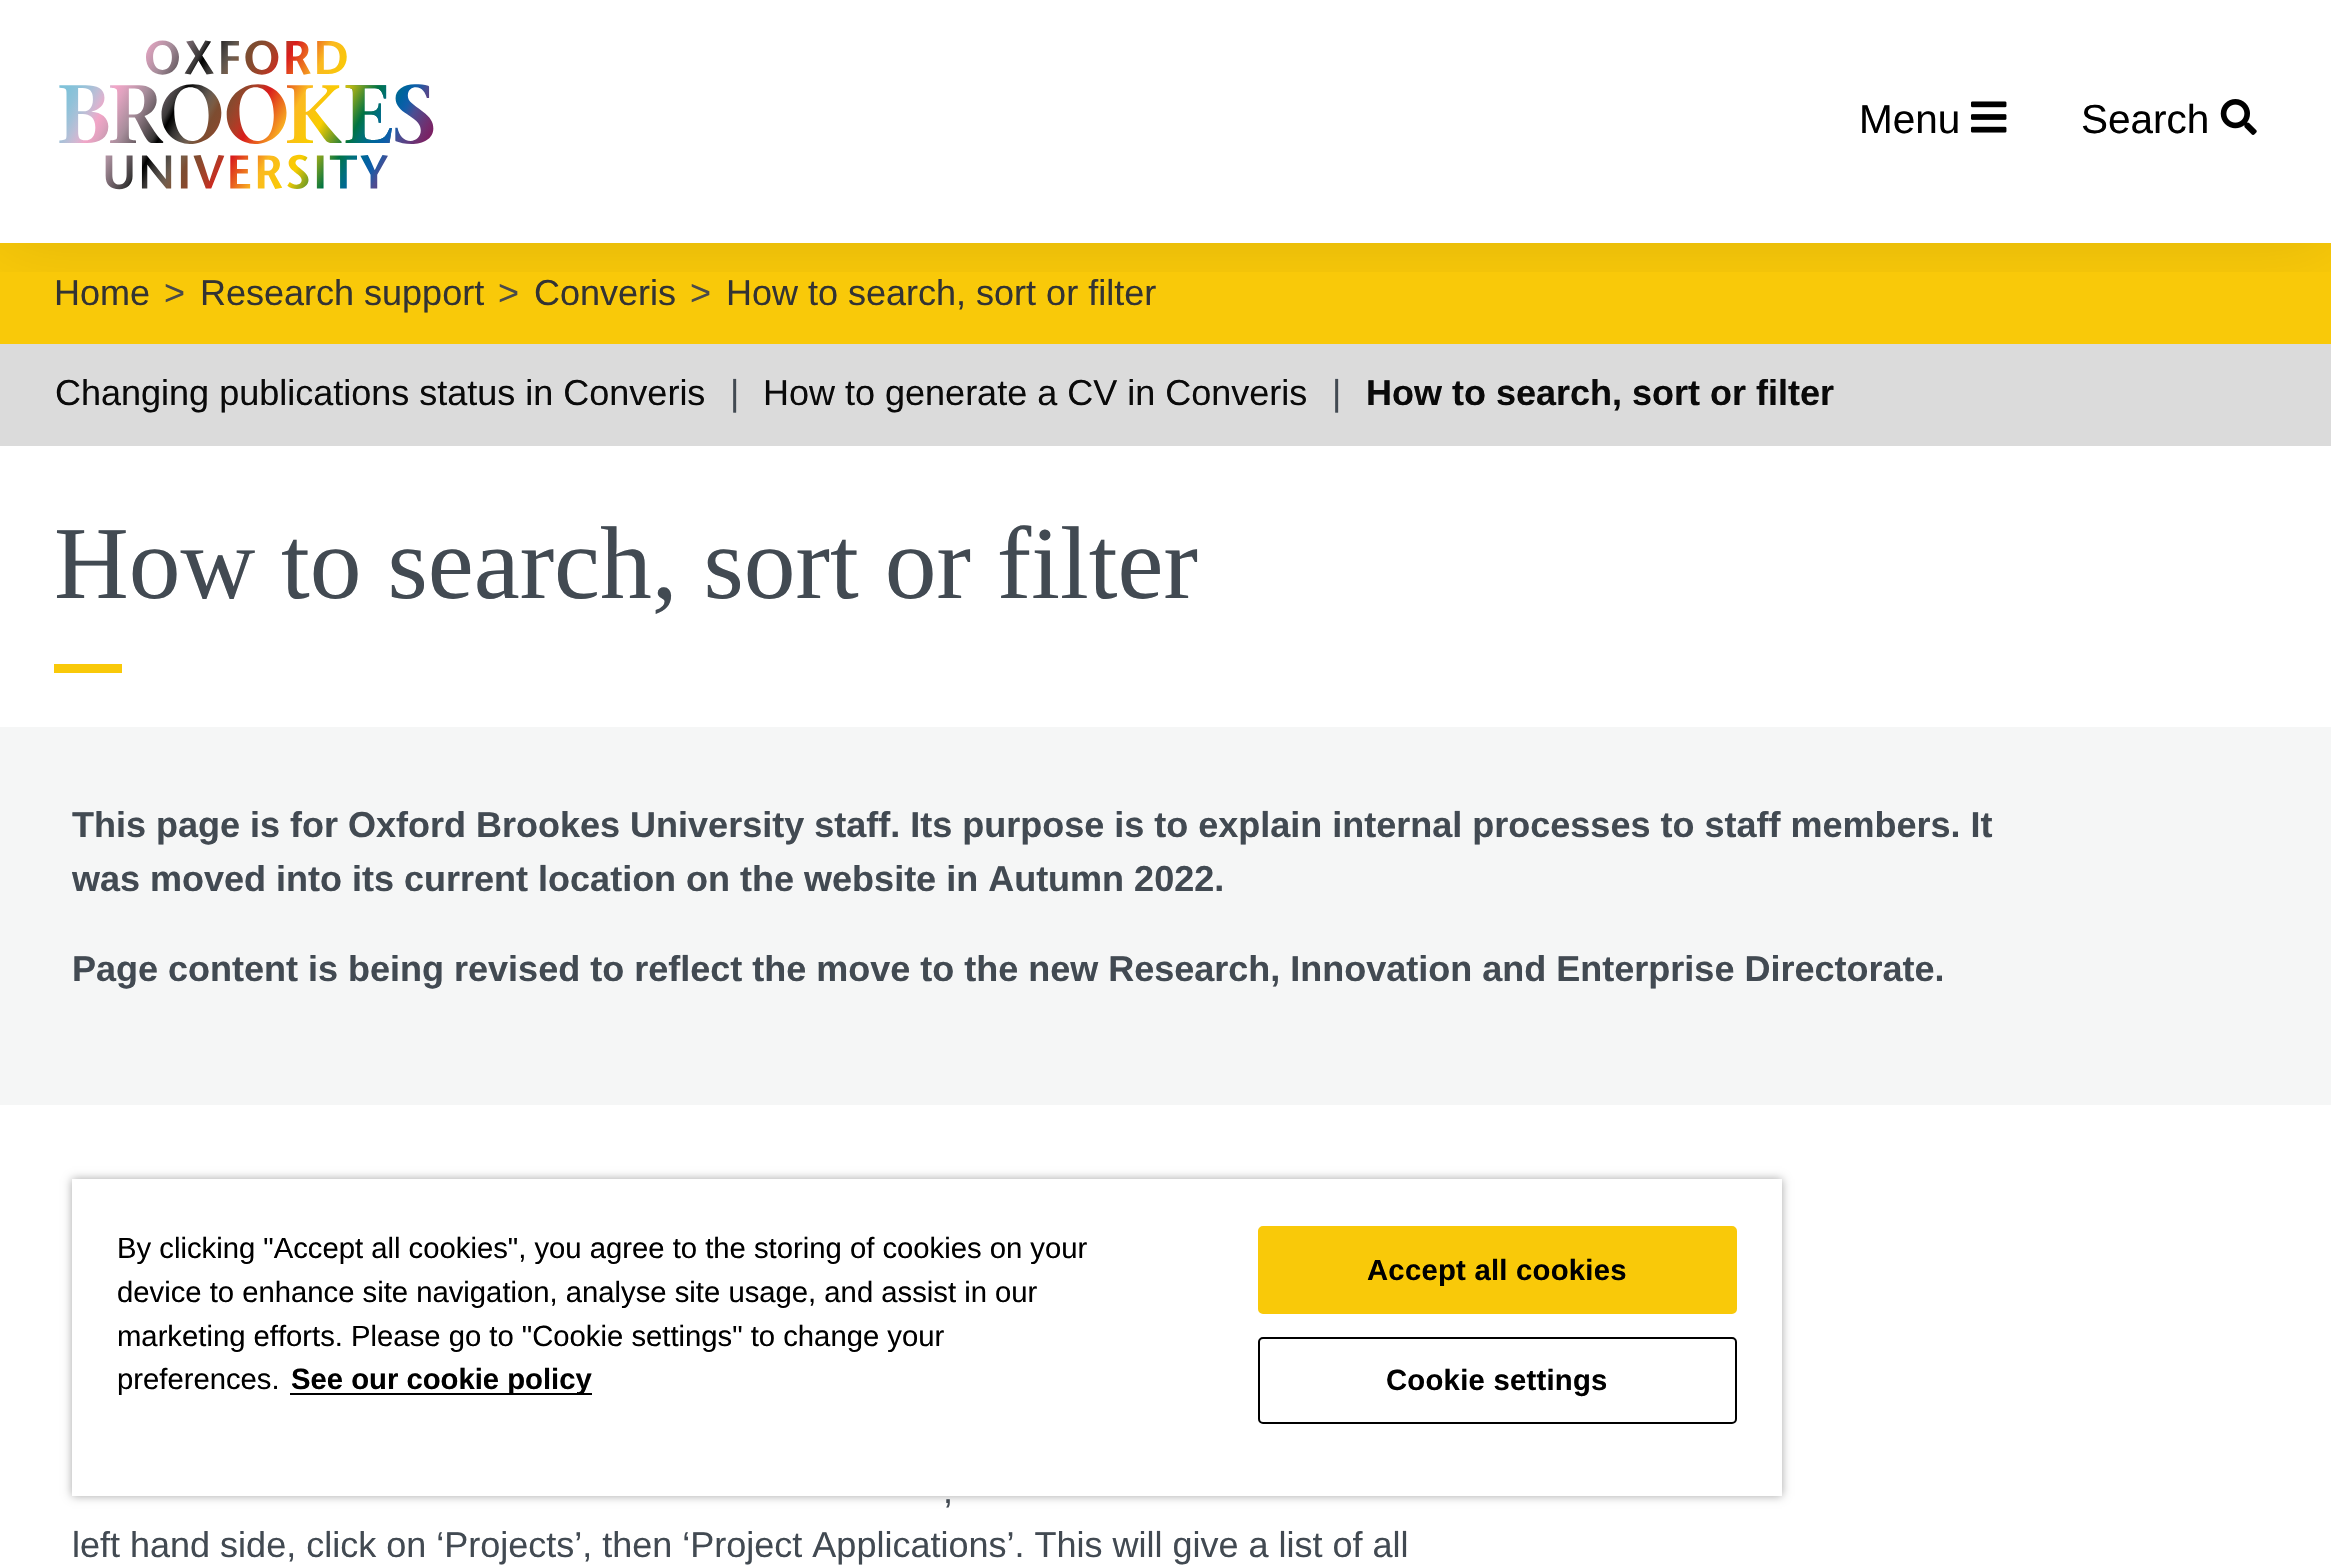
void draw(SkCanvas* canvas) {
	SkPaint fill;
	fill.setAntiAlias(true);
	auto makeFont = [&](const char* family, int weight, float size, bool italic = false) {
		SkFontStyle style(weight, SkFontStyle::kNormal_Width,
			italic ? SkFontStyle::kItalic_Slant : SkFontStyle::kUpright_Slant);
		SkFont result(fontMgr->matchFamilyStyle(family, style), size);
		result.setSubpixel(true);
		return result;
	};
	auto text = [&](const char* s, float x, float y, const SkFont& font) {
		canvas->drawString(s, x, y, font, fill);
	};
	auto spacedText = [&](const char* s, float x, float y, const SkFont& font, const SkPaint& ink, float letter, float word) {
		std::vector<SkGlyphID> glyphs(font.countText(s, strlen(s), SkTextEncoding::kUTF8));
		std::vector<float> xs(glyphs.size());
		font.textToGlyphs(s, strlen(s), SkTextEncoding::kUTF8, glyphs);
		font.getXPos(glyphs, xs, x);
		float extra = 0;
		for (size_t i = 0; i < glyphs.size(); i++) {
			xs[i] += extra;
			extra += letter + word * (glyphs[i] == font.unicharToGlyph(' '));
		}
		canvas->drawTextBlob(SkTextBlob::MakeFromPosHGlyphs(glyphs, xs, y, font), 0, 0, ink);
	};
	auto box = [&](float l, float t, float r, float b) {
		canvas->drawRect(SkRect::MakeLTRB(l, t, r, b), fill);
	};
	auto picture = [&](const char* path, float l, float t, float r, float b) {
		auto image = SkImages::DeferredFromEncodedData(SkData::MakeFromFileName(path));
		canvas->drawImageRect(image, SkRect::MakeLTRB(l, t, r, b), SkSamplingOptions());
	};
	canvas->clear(0xFFFFFFFF);
	fill.setColor(0xFFF9C909);
	box(0, 243, 2331, 344);
	fill.setColor(0xFFDBDBDB);
	box(0, 344, 2331, 446);
	canvas->save();
	canvas->clipRect(SkRect::MakeLTRB(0, 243, 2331, 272));
	fill.setColor(0x1A000000);
	fill.setMaskFilter(SkMaskFilter::MakeBlur(kNormal_SkBlurStyle, 34));
	canvas->drawRect(SkRect::MakeLTRB(0, 0, 2331, 243), fill);
	fill.setMaskFilter(nullptr);
	canvas->restore();
	picture("image0.png", 59, 40, 434, 190);
	picture("image1.png", 1971, 101, 2007, 133);
	picture("image2.png", 2220, 99, 2257, 135);
	fill.setColor(0xFFF9C909);
	box(54, 664, 122, 673);
	fill.setColor(0xFFF5F6F6);
	box(0, 727, 2331, 1105);
	fill.setColor(0x59000000);
	fill.setMaskFilter(SkMaskFilter::MakeBlur(kNormal_SkBlurStyle, 4.5f));
	canvas->drawRect(SkRect::MakeLTRB(72, 1179, 1782, 1496), fill);
	fill.setMaskFilter(nullptr);
	fill.setColor(0xFFFFFFFF);
	box(72, 1179, 1782, 1496);
	fill.setColor(0xFF000000);
	box(290, 1393, 592, 1395);
	fill.setColor(0xFFF9C909);
	canvas->drawRoundRect(SkRect::MakeLTRB(1259, 1227, 1736, 1313), 4, 4, fill);
	fill.setStyle(SkPaint::kStroke_Style);
	fill.setStrokeWidth(2);
	canvas->drawRoundRect(SkRect::MakeLTRB(1259, 1227, 1736, 1313), 4, 4, fill);
	fill.setColor(0xFF000000);
	canvas->drawRoundRect(SkRect::MakeLTRB(1259, 1338, 1736, 1423), 4, 4, fill);
	auto font1 = makeFont("Liberation Sans", 400, 40.5f);
	fill.setStyle(SkPaint::kFill_Style);
	text("Menu", 1859, 133, font1);
	text("Search", 2081, 133, font1);
	auto font2 = makeFont("Liberation Sans", 400, 36);
	fill.setColor(0xFF333333);
	text("Home", 54, 305, font2);
	fill.setColor(0xFF4A4A4A);
	text(">", 164, 305, font2);
	fill.setColor(0xFF333333);
	text("Research support", 200, 305, font2);
	fill.setColor(0xFF4A4A4A);
	text(">", 498, 305, font2);
	fill.setColor(0xFF333333);
	text("Converis", 534, 305, font2);
	fill.setColor(0xFF4A4A4A);
	text(">", 690, 305, font2);
	fill.setColor(0xFF333333);
	text("How to search, sort or filter", 726, 305, font2);
	fill.setColor(0xFF0A0A0A);
	text("Changing publications status in Converis", 55, 405, font2);
	fill.setColor(0xFF424A52);
	text("|", 730, 405, font2);
	fill.setColor(0xFF0A0A0A);
	text("How to generate a CV in Converis", 763, 405, font2);
	fill.setColor(0xFF424A52);
	text("|", 1332, 405, font2);
	auto font3 = makeFont("Liberation Sans", 700, 36);
	fill.setColor(0xFF0A0A0A);
	text("How to search, sort or filter", 1366, 405, font3);
	auto font4 = makeFont("Liberation Serif", 400, 103.5f);
	fill.setColor(0xFF424A52);
	text("How to search, sort or filter", 54, 598, font4);
	text("This page is for Oxford Brookes University staff. Its purpose is to explain internal processes to staff members. It", 72, 837, font3);
	text("was moved into its current location on the website in Autumn 2022.", 72, 891, font3);
	text("Page content is being revised to reflect the move to the new Research, Innovation and Enterprise Directorate.", 72, 981, font3);
	text(",", 943, 1503, font2);
	text("left hand side, click on ‘Projects’, then ‘Project Applications’. This will give a list of all", 72, 1557, font2);
	auto font5 = makeFont("Liberation Sans", 400, 29.25f);
	fill.setColor(0xFF000000);
	text("By clicking \"Accept all cookies\", you agree to the storing of cookies on your", 117, 1258, font5);
	text("device to enhance site navigation, analyse site usage, and assist in our", 117, 1302, font5);
	text("marketing efforts. Please go to \"Cookie settings\" to change your", 117, 1346, font5);
	text("preferences.", 117, 1389, font5);
	auto font6 = makeFont("Liberation Sans", 700, 29.25f);
	text("See our cookie policy", 291, 1389, font6);
	spacedText("Accept all cookies", 1367, 1280, font6, fill, 0.25f, 0);
	spacedText("Cookie settings", 1386, 1390, font6, fill, 0.25f, 0);
}
